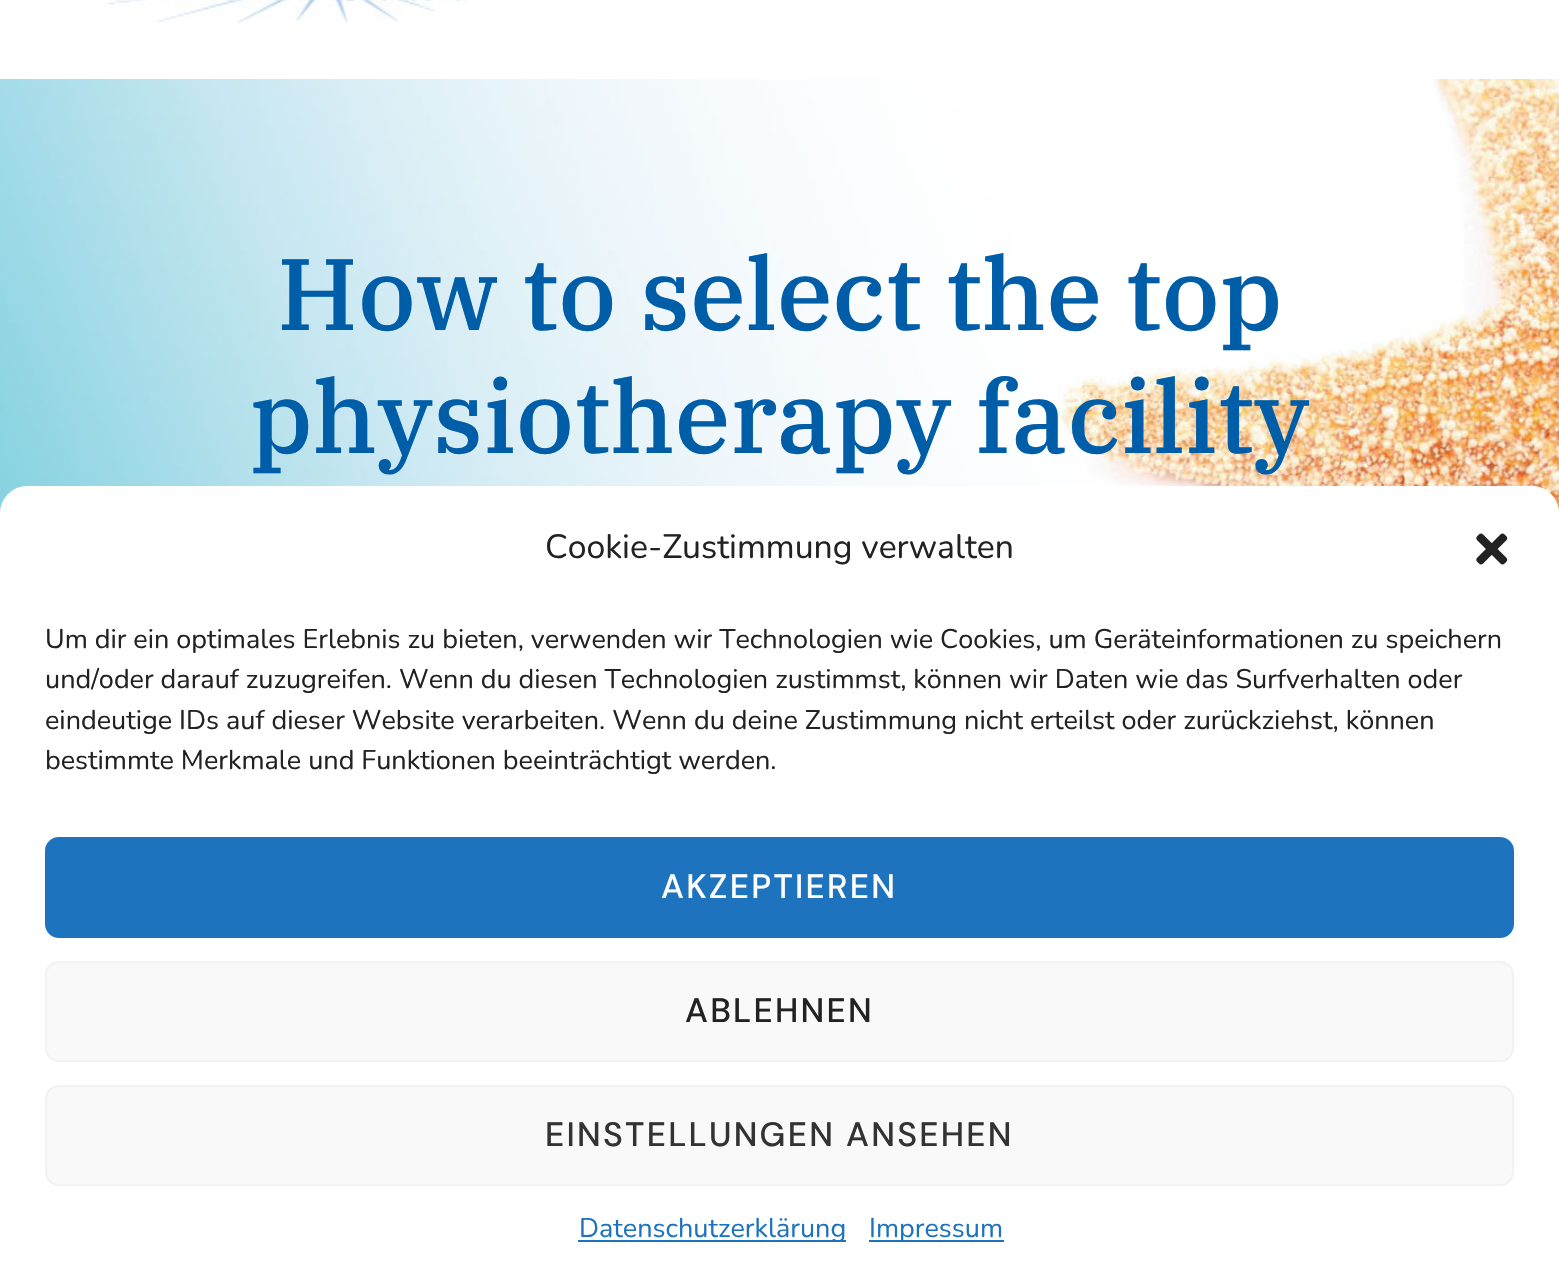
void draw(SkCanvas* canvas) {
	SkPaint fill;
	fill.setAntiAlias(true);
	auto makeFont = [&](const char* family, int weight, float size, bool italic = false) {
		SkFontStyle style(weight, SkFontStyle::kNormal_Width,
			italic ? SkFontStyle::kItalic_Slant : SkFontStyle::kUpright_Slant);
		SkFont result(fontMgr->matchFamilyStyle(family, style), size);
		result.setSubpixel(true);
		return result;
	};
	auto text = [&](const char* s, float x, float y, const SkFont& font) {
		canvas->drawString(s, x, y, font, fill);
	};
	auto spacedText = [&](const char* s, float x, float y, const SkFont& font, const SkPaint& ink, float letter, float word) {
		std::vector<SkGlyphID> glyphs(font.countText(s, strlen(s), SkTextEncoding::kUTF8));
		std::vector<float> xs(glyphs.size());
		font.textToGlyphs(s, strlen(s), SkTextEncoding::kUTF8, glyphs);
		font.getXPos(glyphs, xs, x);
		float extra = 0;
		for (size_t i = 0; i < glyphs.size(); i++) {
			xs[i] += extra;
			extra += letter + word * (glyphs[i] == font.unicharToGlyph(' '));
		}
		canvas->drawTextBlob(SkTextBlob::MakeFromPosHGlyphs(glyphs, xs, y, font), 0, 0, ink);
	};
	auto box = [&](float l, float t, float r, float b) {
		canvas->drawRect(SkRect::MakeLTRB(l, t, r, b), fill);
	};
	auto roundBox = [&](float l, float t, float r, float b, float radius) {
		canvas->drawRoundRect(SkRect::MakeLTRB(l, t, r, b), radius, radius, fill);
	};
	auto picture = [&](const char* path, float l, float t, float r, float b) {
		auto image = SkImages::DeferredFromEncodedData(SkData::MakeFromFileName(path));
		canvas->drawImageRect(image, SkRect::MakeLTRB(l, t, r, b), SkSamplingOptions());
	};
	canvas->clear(0xFFFFFFFF);
	picture("image0.png", 102, 0, 469, 24);
	picture("image1.png", 0, 79, 1559, 513);
	fill.setColor(0xFFFFFFFF);
	roundBox(0, 486, 1559, 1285, 27);
	picture("image2.png", 1476, 533, 1508, 565);
	fill.setColor(0xFF1E73BE);
	canvas->drawRoundRect(SkRect::MakeLTRB(46, 838, 1513, 937), 13, 13, fill);
	fill.setStyle(SkPaint::kStroke_Style);
	fill.setStrokeWidth(2);
	canvas->drawRoundRect(SkRect::MakeLTRB(46, 838, 1513, 937), 13, 13, fill);
	fill.setStyle(SkPaint::kFill_Style);
	fill.setColor(0xFFF9F9F9);
	canvas->drawRoundRect(SkRect::MakeLTRB(46, 962, 1513, 1061), 13, 13, fill);
	fill.setStyle(SkPaint::kStroke_Style);
	fill.setColor(0xFFF2F2F2);
	canvas->drawRoundRect(SkRect::MakeLTRB(46, 962, 1513, 1061), 13, 13, fill);
	fill.setStyle(SkPaint::kFill_Style);
	fill.setColor(0xFFF9F9F9);
	canvas->drawRoundRect(SkRect::MakeLTRB(46, 1086, 1513, 1185), 13, 13, fill);
	fill.setStyle(SkPaint::kStroke_Style);
	fill.setColor(0xFFF2F2F2);
	canvas->drawRoundRect(SkRect::MakeLTRB(46, 1086, 1513, 1185), 13, 13, fill);
	fill.setStyle(SkPaint::kFill_Style);
	fill.setColor(0xFF1E73BE);
	box(578, 1240, 846, 1242);
	box(869, 1240, 1004, 1242);
	auto font1 = makeFont("IBM Plex Serif", 500, 101.25f);
	fill.setColor(0xFF005EA8);
	text("How to select the top", 277, 330, font1);
	text("physiotherapy facility", 250, 453, font1);
	auto font2 = makeFont("Nunito", 200, 33.75f);
	fill.setColor(0xFF222222);
	text("Cookie-Zustimmung verwalten", 545, 558, font2);
	auto font3 = makeFont("Nunito", 200, 27);
	text("Um dir ein optimales Erlebnis zu bieten, verwenden wir Technologien wie Cookies, um Geräteinformationen zu speichern", 45, 648, font3);
	text("und/oder darauf zuzugreifen. Wenn du diesen Technologien zustimmst, können wir Daten wie das Surfverhalten oder", 45, 688, font3);
	text("eindeutige IDs auf dieser Website verarbeiten. Wenn du deine Zustimmung nicht erteilst oder zurückziehst, können", 45, 729, font3);
	text("bestimmte Merkmale und Funktionen beeinträchtigt werden.", 45, 769, font3);
	auto font4 = makeFont("DM Sans", 500, 33.75f);
	fill.setColor(0xFFFFFFFF);
	spacedText("AKZEPTIEREN", 661, 898, font4, fill, 2.25f, 0);
	fill.setColor(0xFF222222);
	spacedText("ABLEHNEN", 685, 1022, font4, fill, 2.25f, 0);
	fill.setColor(0xFF333333);
	spacedText("EINSTELLUNGEN ANSEHEN", 545, 1146, font4, fill, 2.25f, 0);
	fill.setColor(0xFF1E73BE);
	text("Datenschutzerklärung", 579, 1237, font3);
	text("Impressum", 869, 1237, font3);
}
